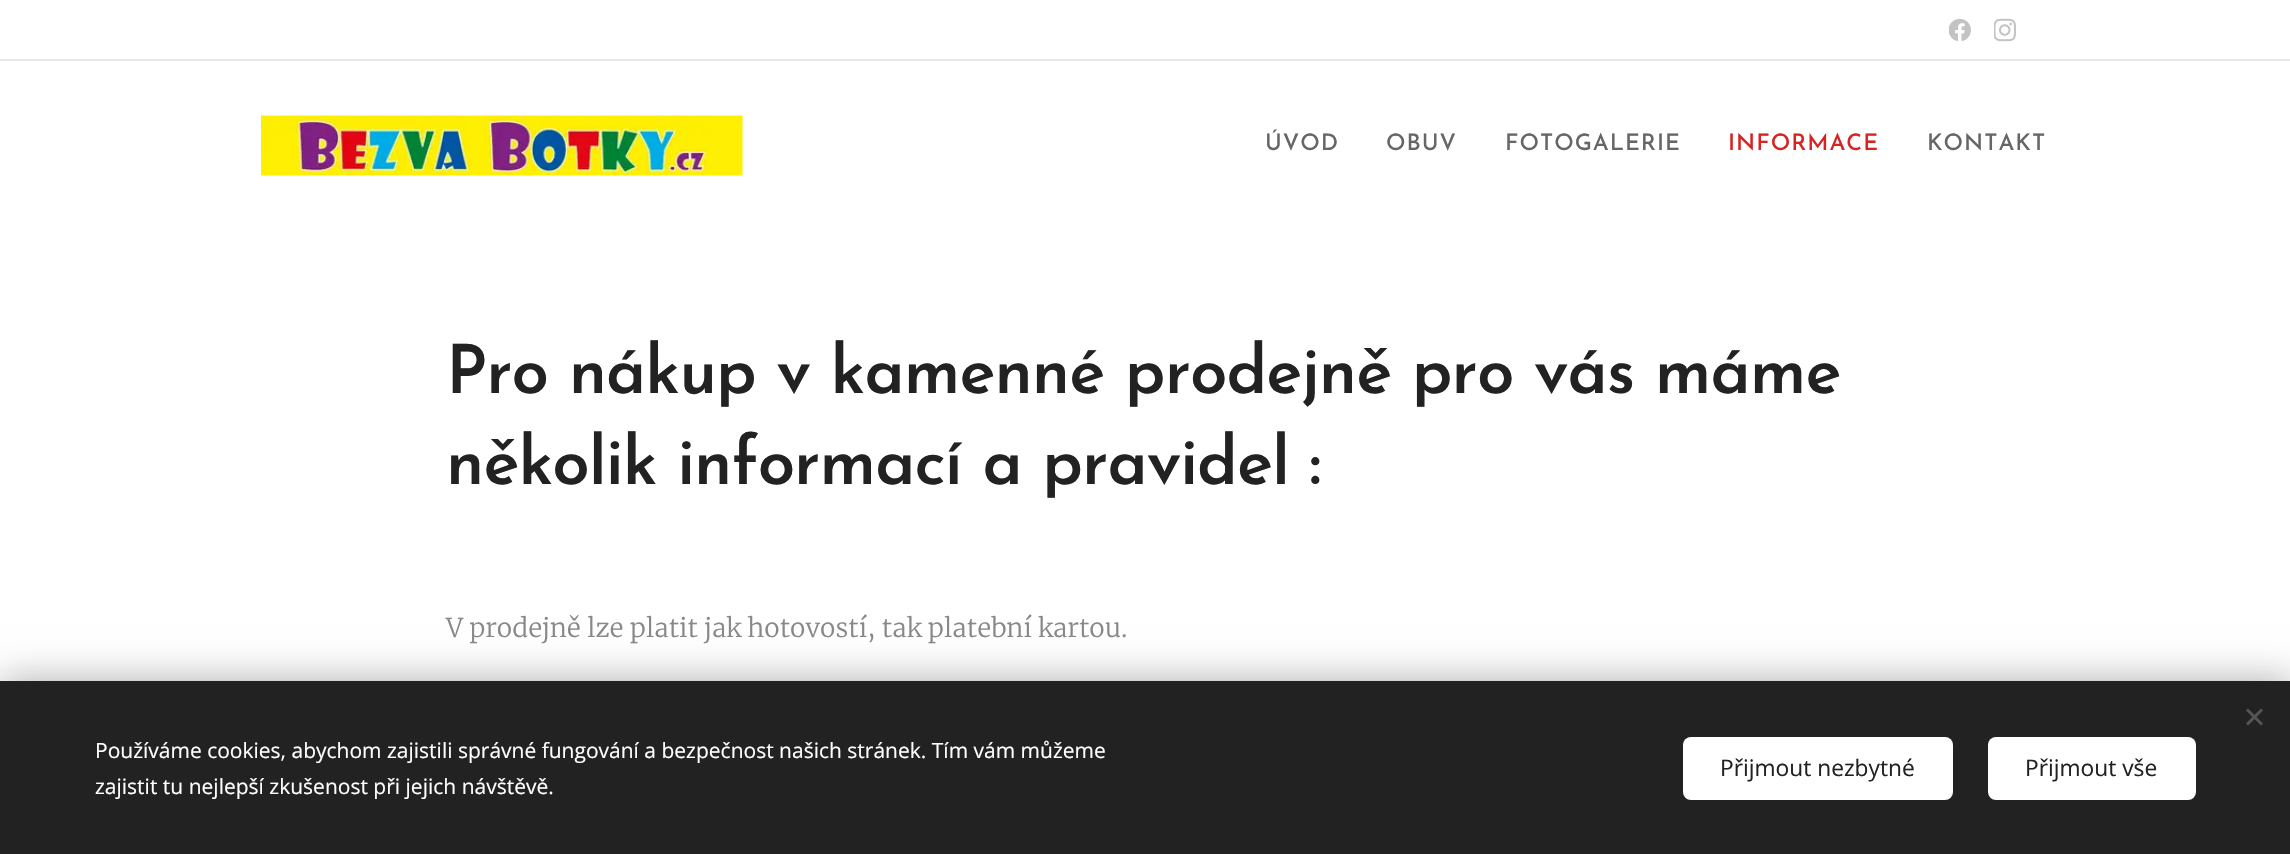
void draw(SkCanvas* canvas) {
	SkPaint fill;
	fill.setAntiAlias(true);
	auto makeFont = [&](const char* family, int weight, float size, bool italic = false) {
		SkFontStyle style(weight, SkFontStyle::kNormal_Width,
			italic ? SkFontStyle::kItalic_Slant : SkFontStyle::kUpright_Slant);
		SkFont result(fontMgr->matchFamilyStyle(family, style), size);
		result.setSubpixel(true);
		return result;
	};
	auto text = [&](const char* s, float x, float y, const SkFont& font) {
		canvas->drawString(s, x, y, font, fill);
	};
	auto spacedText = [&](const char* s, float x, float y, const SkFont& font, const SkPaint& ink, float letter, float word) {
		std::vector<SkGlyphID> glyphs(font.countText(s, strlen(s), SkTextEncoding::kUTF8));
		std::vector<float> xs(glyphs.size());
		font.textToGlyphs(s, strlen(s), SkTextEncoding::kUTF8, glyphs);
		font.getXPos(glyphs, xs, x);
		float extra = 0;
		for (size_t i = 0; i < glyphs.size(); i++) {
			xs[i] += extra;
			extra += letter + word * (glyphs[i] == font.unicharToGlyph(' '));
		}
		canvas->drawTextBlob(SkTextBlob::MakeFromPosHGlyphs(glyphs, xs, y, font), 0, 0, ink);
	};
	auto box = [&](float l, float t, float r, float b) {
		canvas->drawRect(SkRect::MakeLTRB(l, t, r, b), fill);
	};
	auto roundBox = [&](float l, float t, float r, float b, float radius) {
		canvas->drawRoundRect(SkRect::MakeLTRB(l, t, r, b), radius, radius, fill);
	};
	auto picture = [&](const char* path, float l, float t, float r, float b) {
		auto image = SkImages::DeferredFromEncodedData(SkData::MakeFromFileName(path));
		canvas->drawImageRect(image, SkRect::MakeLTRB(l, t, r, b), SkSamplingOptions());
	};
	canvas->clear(0xFFFFFFFF);
	picture("image0.png", 1949, 18, 1971, 41);
	picture("image1.png", 1994, 18, 2016, 42);
	fill.setColor(0xFFE8E8E8);
	box(0, 59, 2290, 61);
	picture("image2.png", 261, 115, 743, 176);
	fill.setColor(0x54000000);
	fill.setMaskFilter(SkMaskFilter::MakeBlur(kNormal_SkBlurStyle, 19));
	canvas->drawRect(SkRect::MakeLTRB(0, 681, 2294, 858), fill);
	fill.setMaskFilter(nullptr);
	fill.setColor(0xFF222222);
	box(0, 681, 2290, 854);
	fill.setColor(0xFF555555);
	canvas->drawPath(SkPathBuilder().moveTo(2246, 723.5f).lineTo(2261, 708.5f).lineTo(2263, 710.5f).lineTo(2248, 725.5f).close().detach(), fill);
	canvas->drawPath(SkPathBuilder().moveTo(2248, 708.5f).lineTo(2263, 723.5f).lineTo(2261, 725.5f).lineTo(2246, 710.5f).close().detach(), fill);
	fill.setColor(0xFFFFFFFF);
	roundBox(1683, 737, 1953, 800, 8);
	roundBox(1988, 737, 2196, 800, 8);
	auto font1 = makeFont("Josefin Sans", 500, 22.75f);
	fill.setColor(0xFF666666);
	spacedText("ÚVOD", 1265, 150, font1, fill, 1, 0);
	spacedText("OBUV", 1386, 150, font1, fill, 1, 0);
	spacedText("FOTOGALERIE", 1505, 150, font1, fill, 1, 0);
	fill.setColor(0xFFD82323);
	spacedText("INFORMACE", 1728, 150, font1, fill, 1, 0);
	fill.setColor(0xFF666666);
	spacedText("KONTAKT", 1927, 150, font1, fill, 1, 0);
	auto font2 = makeFont("Josefin Sans", 600, 67.5f);
	fill.setColor(0xFF222222);
	spacedText("Pro nákup v kamenné prodejně pro vás máme", 446, 393, font2, fill, -1, 0);
	spacedText("několik informací a pravidel :", 446, 484, font2, fill, -1, 0);
	auto font3 = makeFont("Merriweather", 300, 25.8f);
	fill.setColor(0xFF888888);
	text("V prodejně lze platit jak hotovostí, tak platební kartou.", 446, 637, font3);
	auto font4 = makeFont("Open Sans", 400, 21);
	fill.setColor(0xFFFFFFFF);
	text("Používáme cookies, abychom zajistili správné fungování a bezpečnost našich stránek. Tím vám můžeme", 95, 758, font4);
	text("zajistit tu nejlepší zkušenost při jejich návštěvě.", 95, 794, font4);
	auto font5 = makeFont("Open Sans", 400, 22.75f);
	fill.setColor(0xFF222222);
	text("Přijmout nezbytné", 1720, 776, font5);
	text("Přijmout vše", 2025, 776, font5);
}
